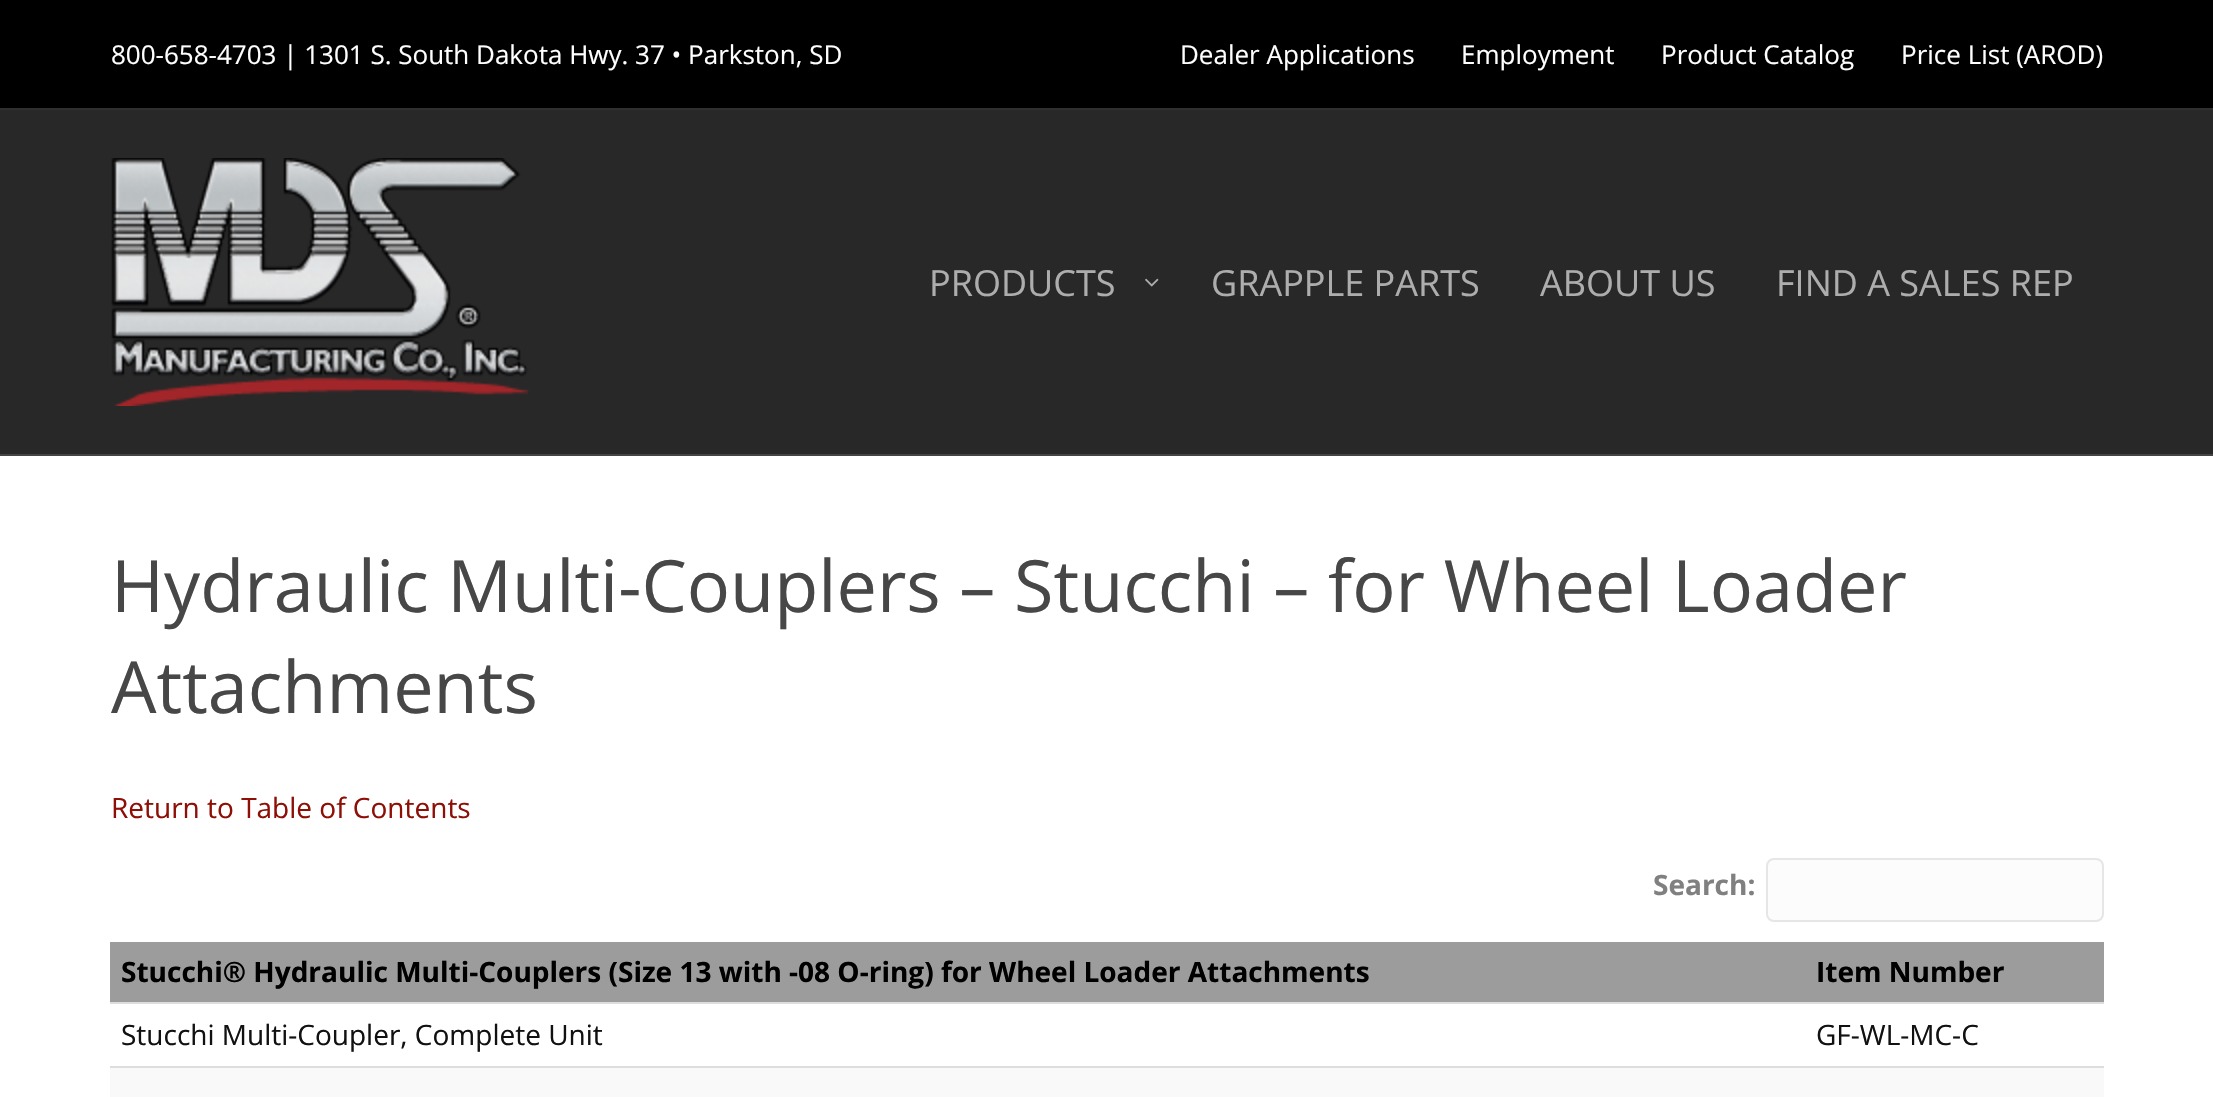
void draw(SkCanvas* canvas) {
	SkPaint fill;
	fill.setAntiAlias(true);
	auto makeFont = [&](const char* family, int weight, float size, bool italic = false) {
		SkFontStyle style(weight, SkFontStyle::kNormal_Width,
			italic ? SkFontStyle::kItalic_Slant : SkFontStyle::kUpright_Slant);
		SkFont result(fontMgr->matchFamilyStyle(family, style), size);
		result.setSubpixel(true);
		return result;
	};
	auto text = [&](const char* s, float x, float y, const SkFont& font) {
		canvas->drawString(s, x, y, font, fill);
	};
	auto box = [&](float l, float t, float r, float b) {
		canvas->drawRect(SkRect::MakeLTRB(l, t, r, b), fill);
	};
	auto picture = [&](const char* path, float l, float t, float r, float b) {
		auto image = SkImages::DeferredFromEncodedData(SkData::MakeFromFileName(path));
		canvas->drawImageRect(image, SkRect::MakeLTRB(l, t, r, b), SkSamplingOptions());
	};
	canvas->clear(0xFF000000);
	fill.setColor(0xFF303030);
	box(0, 108, 2213, 110);
	fill.setColor(0xFF282828);
	box(0, 110, 2213, 454);
	fill.setColor(0xFF444444);
	box(0, 454, 2213, 456);
	picture("image0.png", 111, 158, 529, 406);
	picture("image1.png", 1145, 278, 1159, 287);
	fill.setColor(0xFFFFFFFF);
	box(0, 456, 2213, 1097);
	fill.setColor(0xFFFCFCFC);
	canvas->drawRoundRect(SkRect::MakeLTRB(1767, 859, 2103, 921), 7, 7, fill);
	fill.setStyle(SkPaint::kStroke_Style);
	fill.setStrokeWidth(2);
	fill.setColor(0xFFE6E6E6);
	canvas->drawRoundRect(SkRect::MakeLTRB(1767, 859, 2103, 921), 7, 7, fill);
	fill.setStyle(SkPaint::kFill_Style);
	fill.setColor(0xFF9C9C9C);
	box(110, 942, 2104, 1002);
	fill.setColor(0xFFDDDDDD);
	box(110, 1002, 2104, 1004);
	box(110, 1066, 2104, 1068);
	fill.setColor(0xFFF9F9F9);
	box(110, 1068, 2104, 1097);
	auto font1 = makeFont("Open Sans", 400, 26);
	fill.setColor(0xFFFFFFFF);
	text("800-658-4703 | 1301 S. South Dakota Hwy. 37 • Parkston, SD", 111, 64, font1);
	text("Dealer Applications", 1180, 64, font1);
	text("Employment", 1461, 64, font1);
	text("Product Catalog", 1661, 64, font1);
	text("Price List (AROD)", 1901, 64, font1);
	auto font2 = makeFont("Open Sans", 400, 36);
	fill.setColor(0xFFADADAD);
	text("PRODUCTS", 929, 296, font2);
	text("GRAPPLE PARTS", 1211, 296, font2);
	text("ABOUT US", 1540, 296, font2);
	text("FIND A SALES REP", 1776, 296, font2);
	auto font3 = makeFont("Open Sans", 400, 72);
	fill.setColor(0xFF474747);
	text("Hydraulic Multi-Couplers – Stucchi – for Wheel Loader", 111, 612, font3);
	text("Attachments", 111, 713, font3);
	auto font4 = makeFont("Open Sans", 400, 28);
	fill.setColor(0xFF8D0F06);
	text("Return to Table of Contents", 111, 818, font4);
	auto font5 = makeFont("Open Sans", 700, 28);
	fill.setColor(0xFF808080);
	text("Search:", 1653, 895, font5);
	fill.setColor(0xFF000000);
	text("Stucchi® Hydraulic Multi-Couplers (Size 13 with -08 O-ring) for Wheel Loader Attachments", 121, 982, font5);
	text("Item Number", 1816, 982, font5);
	fill.setColor(0xFF111111);
	text("Stucchi Multi-Coupler, Complete Unit", 121, 1045, font4);
	text("GF-WL-MC-C", 1816, 1045, font4);
}
